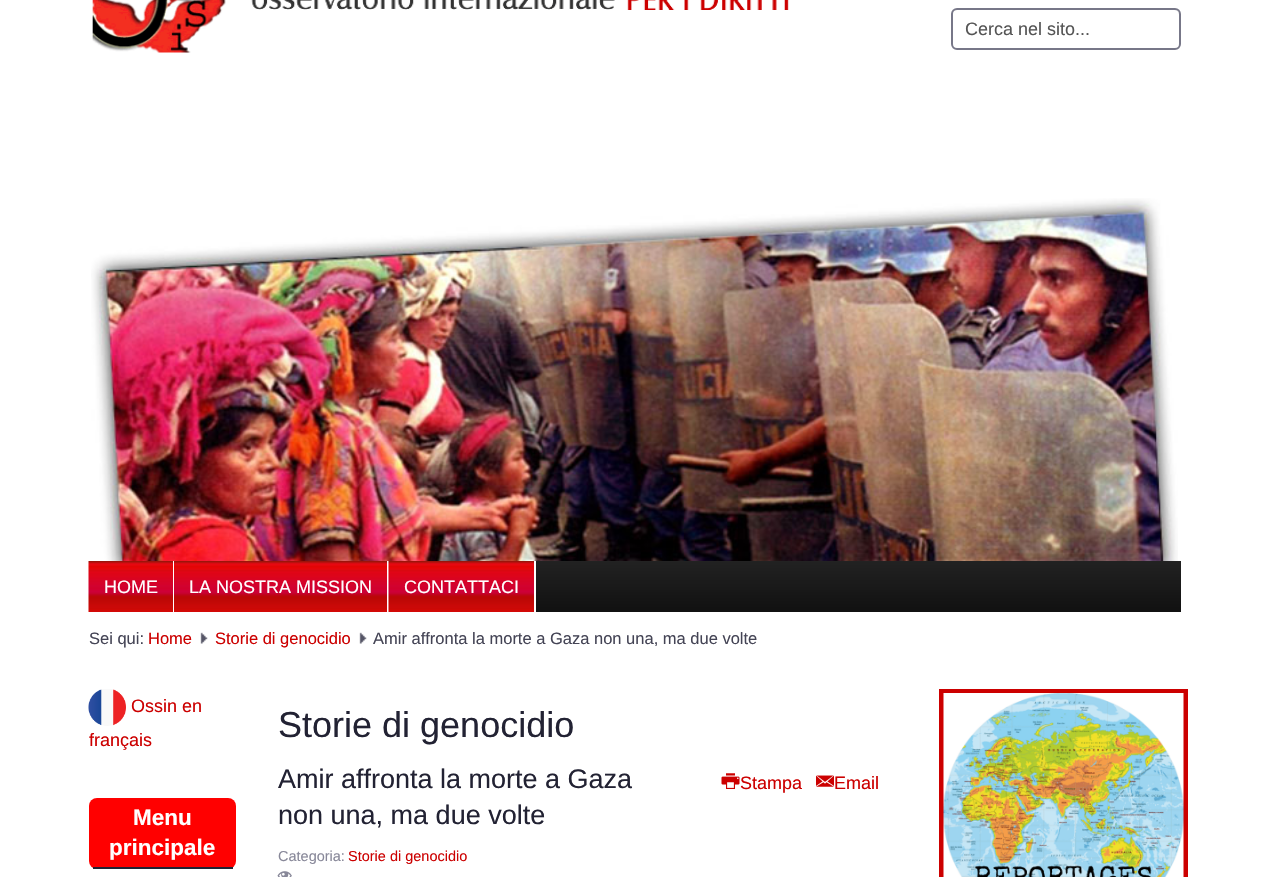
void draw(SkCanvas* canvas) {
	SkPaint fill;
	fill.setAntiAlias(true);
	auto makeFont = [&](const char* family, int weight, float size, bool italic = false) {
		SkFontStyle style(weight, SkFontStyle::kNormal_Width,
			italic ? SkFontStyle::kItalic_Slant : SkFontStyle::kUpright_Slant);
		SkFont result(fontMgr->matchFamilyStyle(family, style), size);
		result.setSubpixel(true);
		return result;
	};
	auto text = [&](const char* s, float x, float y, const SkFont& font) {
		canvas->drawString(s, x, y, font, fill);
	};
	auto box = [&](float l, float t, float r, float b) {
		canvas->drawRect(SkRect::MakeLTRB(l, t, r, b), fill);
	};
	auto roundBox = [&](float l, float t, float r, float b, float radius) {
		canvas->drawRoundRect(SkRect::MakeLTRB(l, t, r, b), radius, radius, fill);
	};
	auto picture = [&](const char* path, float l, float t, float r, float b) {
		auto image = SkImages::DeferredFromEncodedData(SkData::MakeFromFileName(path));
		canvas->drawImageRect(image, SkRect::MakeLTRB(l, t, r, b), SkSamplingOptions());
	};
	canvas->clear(0xFFFFFFFF);
	picture("image0.png", 92, 0, 789, 53);
	fill.setColor(0xFFECECEC);
	canvas->drawPath(SkPathBuilder().moveTo(957, 10).lineTo(1174, 10).cubicTo(1177, 10, 1179, 13, 1179, 15).lineTo(1179, 14).cubicTo(1179, 11, 1177, 9, 1174, 9).lineTo(958, 9).cubicTo(956, 9, 954, 10, 953, 12).cubicTo(954, 11, 956, 10, 957, 10).close().detach(), fill);
	fill.setStyle(SkPaint::kStroke_Style);
	fill.setStrokeWidth(2);
	fill.setColor(0xFF777788);
	canvas->drawRoundRect(SkRect::MakeLTRB(952, 9, 1180, 49), 5, 5, fill);
	picture("image1.png", 91, 198, 1178, 561);
	fill.setStyle(SkPaint::kFill_Style);
	{
		const SkColor colors[] = {0xFF222222, 0xFF111111};
		const float stops[] = {0, 1};
		const SkPoint ends[] = {{635, 561}, {635, 612}};
		fill.setShader(SkGradientShader::MakeLinear(ends, colors, stops, 2, SkTileMode::kClamp));
		fill.setAlpha(255);
	}
	box(536, 561, 1181, 612);
	picture("image2.png", 88, 561, 173, 612);
	picture("image3.png", 174, 561, 387, 612);
	picture("image4.png", 388, 561, 534, 612);
	picture("image5.png", 200, 632, 208, 644);
	picture("image6.png", 359, 632, 367, 644);
	picture("image7.png", 88, 689, 126, 726);
	fill.setShader(nullptr);
	fill.setColor(0xFFFF0000);
	roundBox(89, 798, 236, 869, 8);
	fill.setColor(0xFF222233);
	box(93, 867, 233, 869);
	picture("image8.png", 721, 773, 740, 789);
	picture("image9.png", 816, 775, 834, 787);
	picture("image10.png", 277, 871, 292, 877);
	fill.setStyle(SkPaint::kStroke_Style);
	fill.setStrokeWidth(5);
	fill.setColor(0xFFCC0000);
	canvas->drawRect(SkRect::MakeLTRB(941.5f, 691.5f, 1185.5f, 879.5f), fill);
	picture("image11.png", 943, 693, 1184, 877);
	auto font1 = makeFont("Liberation Sans", 400, 18);
	fill.setStyle(SkPaint::kFill_Style);
	fill.setColor(0xFF555555);
	text("Cerca nel sito...", 965, 35, font1);
	fill.setColor(0xFFFFFFFF);
	text("HOME", 104, 593, font1);
	text("LA NOSTRA MISSION", 189, 593, font1);
	text("CONTATTACI", 404, 593, font1);
	auto font2 = makeFont("Liberation Sans", 400, 16.5f);
	fill.setColor(0xFF444455);
	text("Sei qui:", 89, 644, font2);
	fill.setColor(0xFFCC0000);
	text("Home", 148, 644, font2);
	text("Storie di genocidio", 215, 644, font2);
	fill.setColor(0xFF444455);
	text("Amir affronta la morte a Gaza non una, ma due volte", 373, 644, font2);
	fill.setColor(0xFFCC0000);
	text("Ossin en", 131, 712, font1);
	text("français", 89, 746, font1);
	auto font3 = makeFont("Liberation Sans", 700, 22.5f);
	fill.setColor(0xFFFFFFFF);
	text("Menu", 133, 825, font3);
	text("principale", 109, 855, font3);
	auto font4 = makeFont("Liberation Sans", 400, 36);
	fill.setColor(0xFF222233);
	text("Storie di genocidio", 278, 737, font4);
	auto font5 = makeFont("Liberation Sans", 400, 27);
	text("Amir affronta la morte a Gaza", 278, 788, font5);
	text("non una, ma due volte", 278, 824, font5);
	fill.setColor(0xFFCC0000);
	text("Stampa", 740, 789, font1);
	text("Email", 834, 789, font1);
	auto font6 = makeFont("Liberation Sans", 400, 14.5f);
	fill.setColor(0xFF888899);
	text("Categoria:", 278, 861, font6);
	fill.setColor(0xFFCC0000);
	text("Storie di genocidio", 348, 861, font6);
}
